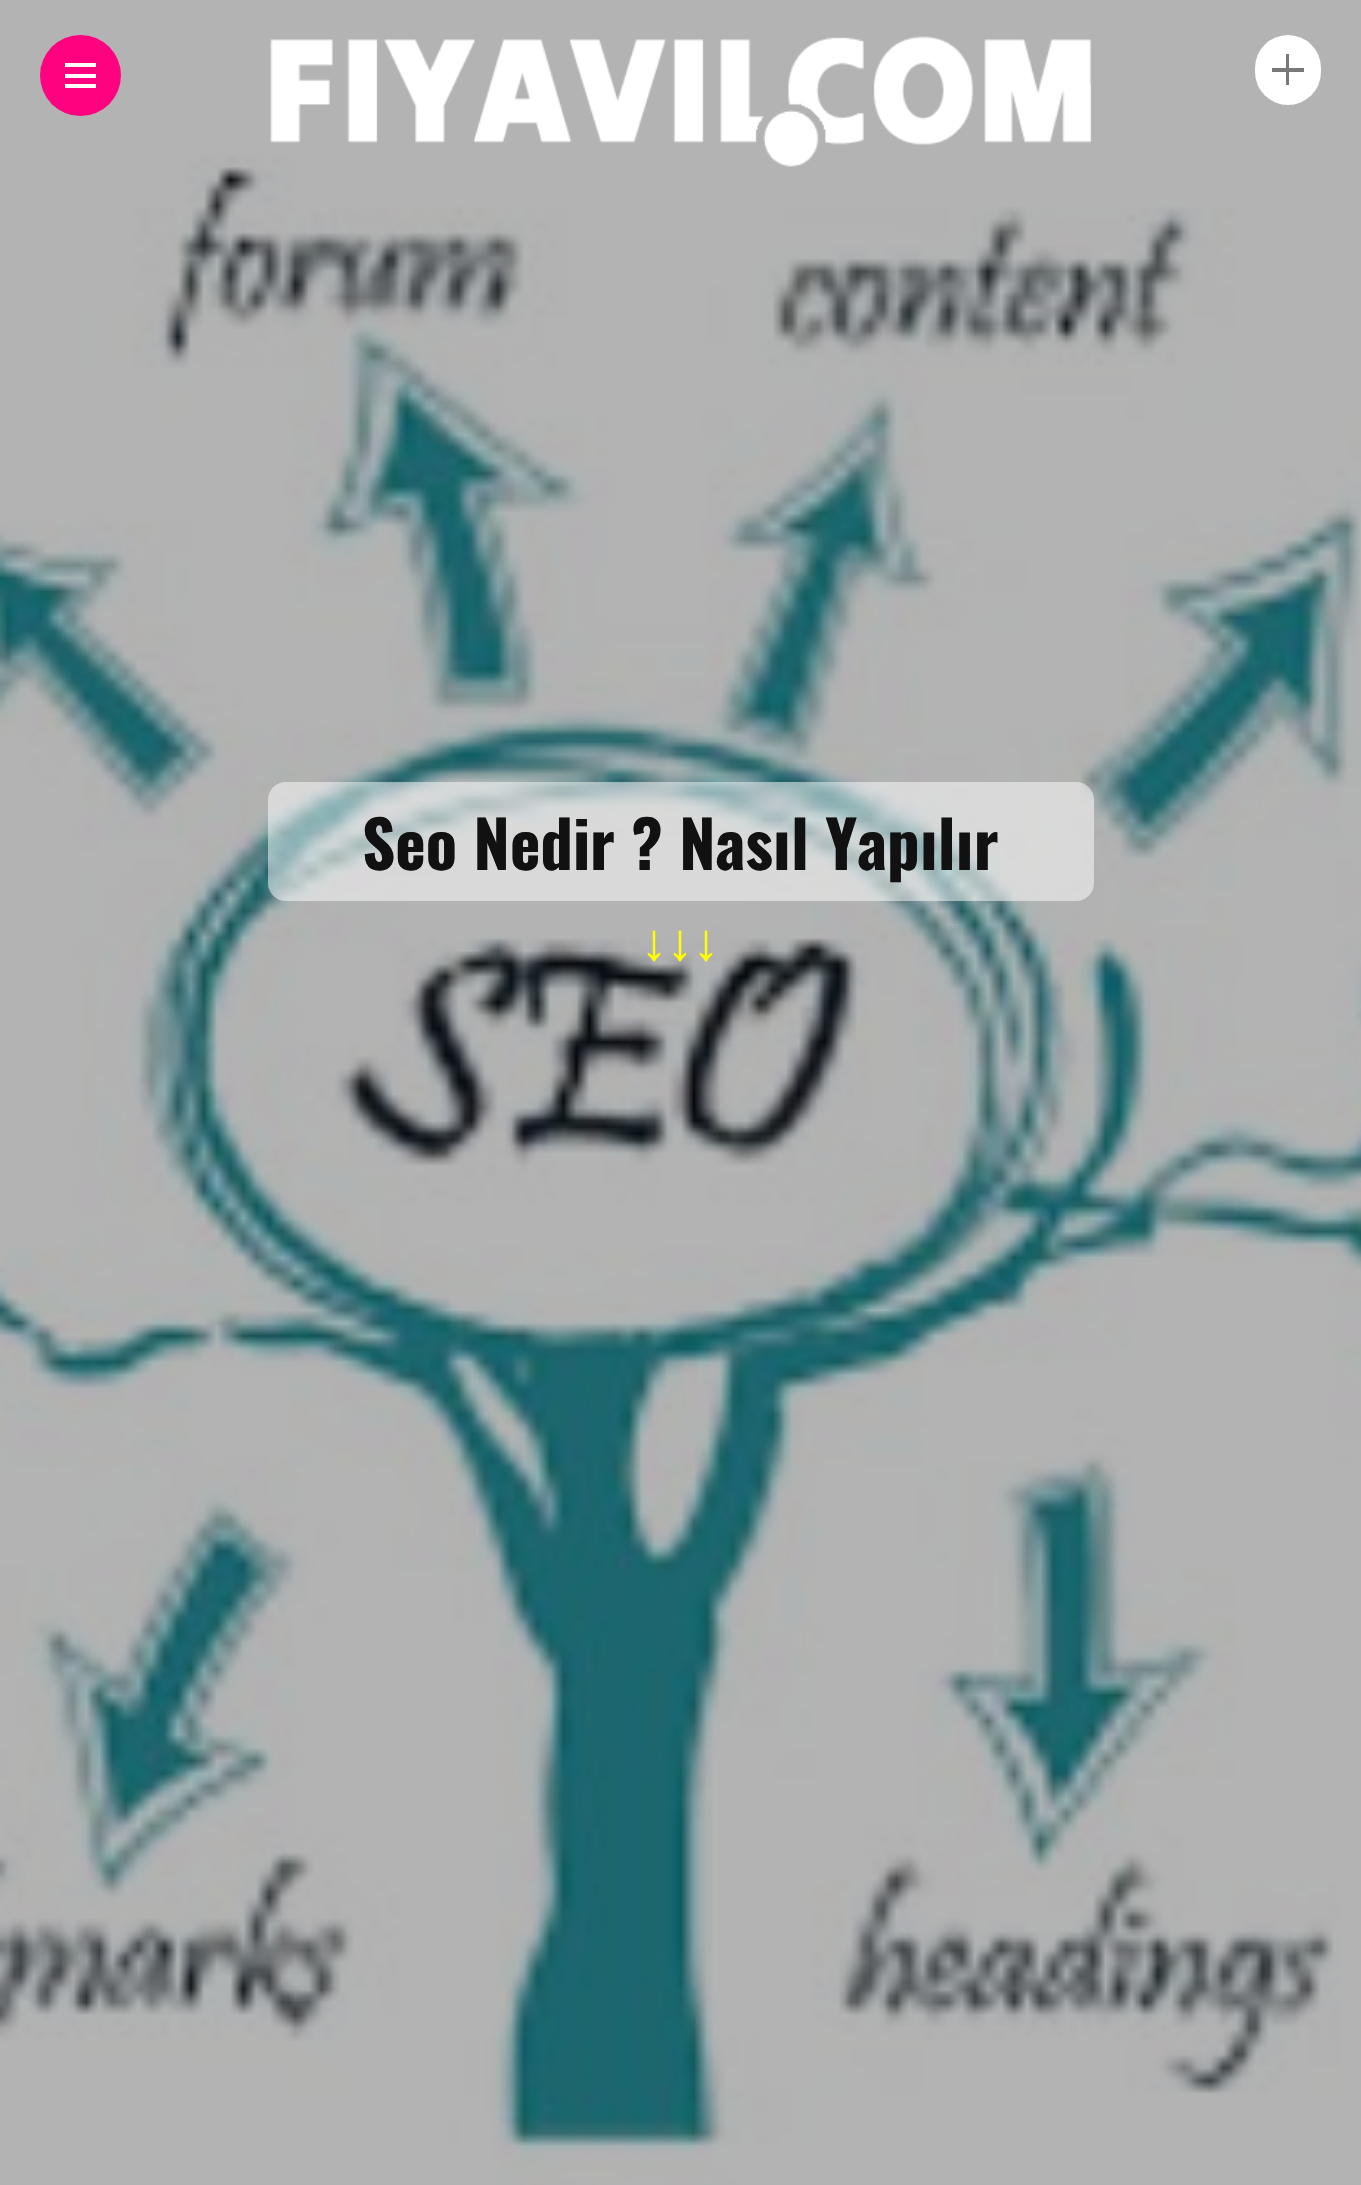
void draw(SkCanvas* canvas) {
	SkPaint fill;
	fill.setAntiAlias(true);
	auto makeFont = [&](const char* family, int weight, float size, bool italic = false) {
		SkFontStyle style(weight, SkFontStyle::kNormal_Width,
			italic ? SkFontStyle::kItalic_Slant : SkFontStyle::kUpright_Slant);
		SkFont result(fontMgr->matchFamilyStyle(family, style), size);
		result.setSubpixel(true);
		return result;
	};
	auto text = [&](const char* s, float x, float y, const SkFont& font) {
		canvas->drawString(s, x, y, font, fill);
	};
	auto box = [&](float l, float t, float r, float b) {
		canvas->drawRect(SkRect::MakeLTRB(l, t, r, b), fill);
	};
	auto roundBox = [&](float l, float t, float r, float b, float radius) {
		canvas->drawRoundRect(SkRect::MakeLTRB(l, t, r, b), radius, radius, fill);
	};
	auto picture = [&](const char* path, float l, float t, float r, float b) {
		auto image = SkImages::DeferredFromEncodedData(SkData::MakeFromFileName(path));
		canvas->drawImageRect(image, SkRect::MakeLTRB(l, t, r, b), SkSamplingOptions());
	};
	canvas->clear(0xFFB3B3B3);
	fill.setColor(0xFFFFFFFF);
	roundBox(1255, 35, 1321, 105, 33);
	fill.setColor(0xFF787878);
	box(1272, 68, 1304, 72);
	box(1286, 54, 1289, 85);
	picture("image0.png", 0, 130, 1361, 2185);
	fill.setColor(0xFFFF027F);
	canvas->drawCircle(80.5f, 75.5f, 40.5f, fill);
	fill.setColor(0xFFFFFFFF);
	box(65, 63, 96, 67);
	box(65, 74, 96, 78);
	box(65, 84, 96, 88);
	picture("image1.png", 270, 36, 1092, 167);
	fill.setColor(0x80FFFFFF);
	roundBox(268, 782, 1094, 901, 18);
	auto font1 = makeFont("Oswald", 700, 64.75f);
	fill.setColor(0xFF111111);
	text("Seo Nedir ? Nasıl Yapılır", 362, 870, font1);
	auto font2 = makeFont("Liberation Serif", 700, 52);
	fill.setColor(0xFFFFFF00);
	text("↓↓↓", 641, 960, font2);
}
